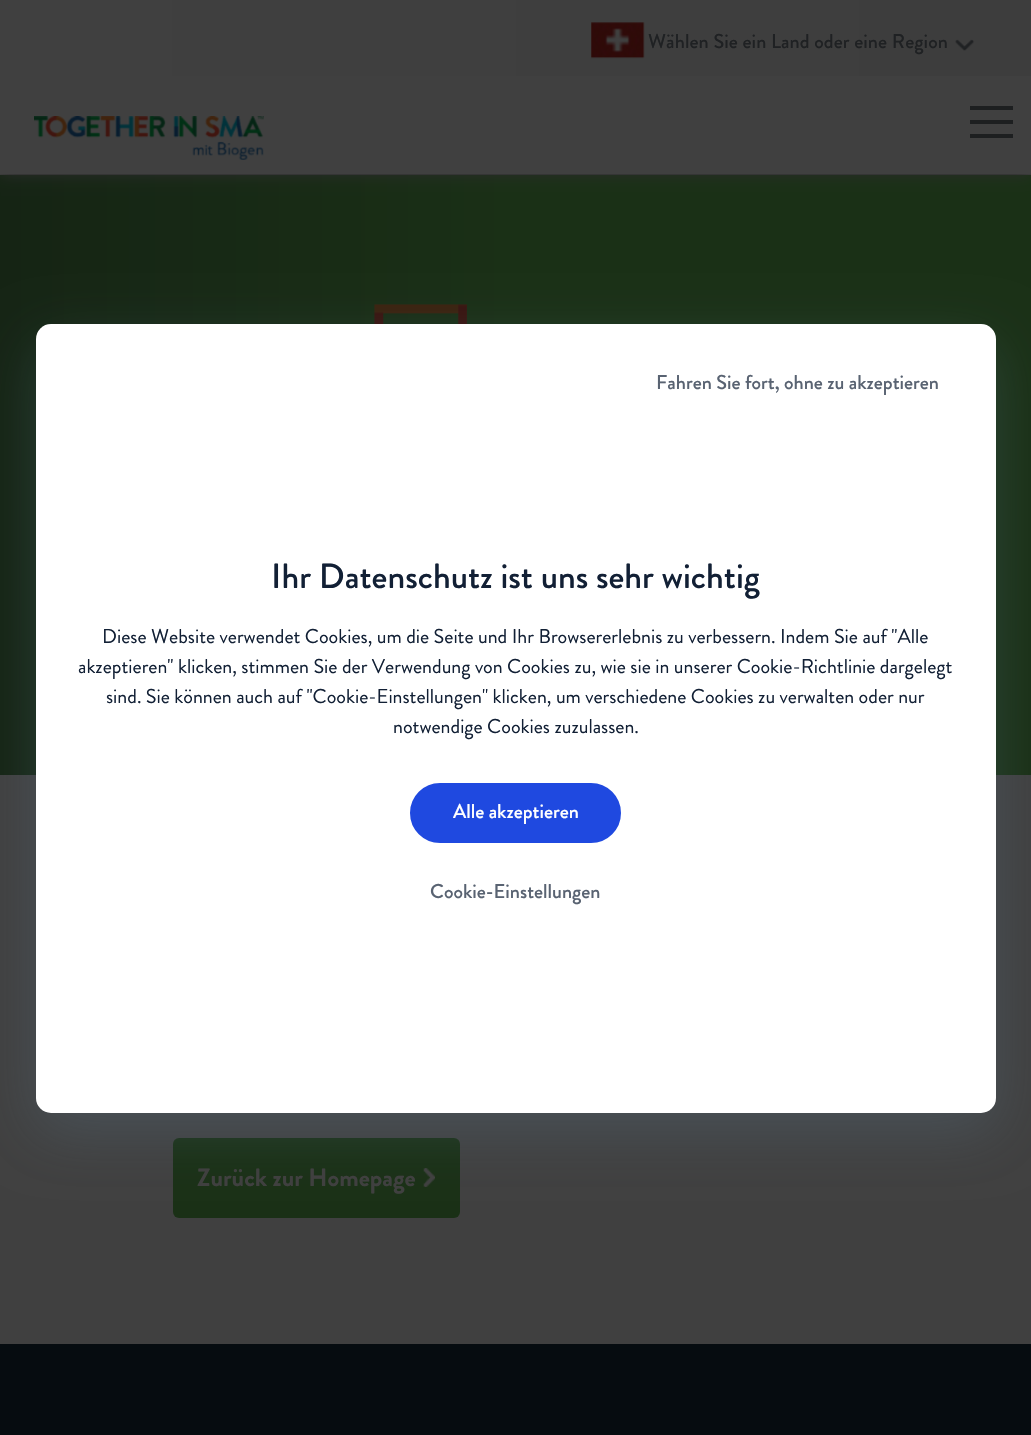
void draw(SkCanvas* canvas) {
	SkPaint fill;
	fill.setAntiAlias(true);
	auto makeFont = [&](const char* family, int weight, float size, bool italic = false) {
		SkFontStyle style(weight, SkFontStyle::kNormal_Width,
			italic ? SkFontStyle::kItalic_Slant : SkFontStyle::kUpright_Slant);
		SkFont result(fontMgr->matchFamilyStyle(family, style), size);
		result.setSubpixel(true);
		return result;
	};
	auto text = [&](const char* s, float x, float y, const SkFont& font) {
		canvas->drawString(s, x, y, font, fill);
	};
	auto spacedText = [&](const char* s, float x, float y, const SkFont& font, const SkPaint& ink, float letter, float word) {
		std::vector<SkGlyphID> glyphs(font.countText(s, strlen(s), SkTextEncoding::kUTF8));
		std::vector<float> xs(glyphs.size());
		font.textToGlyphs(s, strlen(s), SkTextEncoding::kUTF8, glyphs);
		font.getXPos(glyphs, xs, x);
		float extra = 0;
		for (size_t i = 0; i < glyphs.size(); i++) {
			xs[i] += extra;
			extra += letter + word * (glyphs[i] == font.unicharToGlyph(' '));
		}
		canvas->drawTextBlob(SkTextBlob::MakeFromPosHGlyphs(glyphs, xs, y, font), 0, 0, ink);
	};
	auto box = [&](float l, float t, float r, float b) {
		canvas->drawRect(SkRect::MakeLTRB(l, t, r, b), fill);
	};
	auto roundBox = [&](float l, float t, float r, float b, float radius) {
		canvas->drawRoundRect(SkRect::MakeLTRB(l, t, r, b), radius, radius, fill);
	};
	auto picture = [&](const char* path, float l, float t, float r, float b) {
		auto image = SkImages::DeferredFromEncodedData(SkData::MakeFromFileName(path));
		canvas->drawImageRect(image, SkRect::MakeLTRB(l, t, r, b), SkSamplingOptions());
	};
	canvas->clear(0xFF404040);
	{
		const SkColor colors[] = {0xFF1A3016, 0xFF152414};
		const float stops[] = {0.5f, 1};
		const SkPoint ends[] = {{1031, 475}, {0, 475}};
		fill.setShader(SkGradientShader::MakeLinear(ends, colors, stops, 2, SkTileMode::kClamp));
		fill.setAlpha(255);
	}
	box(0, 175, 1031, 775);
	fill.setShader(nullptr);
	fill.setColor(0xFF2B2B2B);
	fill.setMaskFilter(SkMaskFilter::MakeBlur(kNormal_SkBlurStyle, 7));
	canvas->drawRect(SkRect::MakeLTRB(1, 4, 1030, 175), fill);
	fill.setMaskFilter(nullptr);
	fill.setColor(0xFF404040);
	box(0, 76, 1031, 174);
	{
		const SkColor colors[] = {0xFF404040, 0xFF3D3D3D};
		const float stops[] = {0, 1};
		const SkPoint ends[] = {{0, 38}, {1031, 38}};
		fill.setShader(SkGradientShader::MakeLinear(ends, colors, stops, 2, SkTileMode::kClamp));
		fill.setAlpha(255);
	}
	box(0, 0, 1031, 76);
	picture("image0.png", 591, 22, 645, 59);
	picture("image1.png", 955, 39, 975, 51);
	picture("image2.png", 34, 116, 264, 160);
	fill.setShader(nullptr);
	fill.setColor(0xFF1D1F20);
	box(970, 106, 1013, 110);
	box(970, 120, 1013, 124);
	box(970, 134, 1013, 138);
	picture("image3.png", 374, 304, 467, 324);
	fill.setColor(0xFF1A3016);
	roundBox(173, 1138, 460, 1218, 6);
	picture("image4.png", 423, 1168, 435, 1187);
	fill.setColor(0xFF060C10);
	box(0, 1344, 1031, 1435);
	fill.setColor(0x3D64859D);
	fill.setMaskFilter(SkMaskFilter::MakeBlur(kNormal_SkBlurStyle, 29));
	canvas->drawRoundRect(SkRect::MakeLTRB(36, 343, 996, 1131), 15, 15, fill);
	fill.setMaskFilter(nullptr);
	fill.setColor(0xFFFFFFFF);
	roundBox(36, 324, 996, 1113, 15);
	fill.setColor(0xFF1F49E0);
	canvas->drawRoundRect(SkRect::MakeLTRB(411.5f, 784.5f, 619.5f, 841.5f), 28.5f, 28.5f, fill);
	fill.setStyle(SkPaint::kStroke_Style);
	fill.setStrokeWidth(3);
	canvas->drawRoundRect(SkRect::MakeLTRB(411.5f, 784.5f, 619.5f, 841.5f), 28.5f, 28.5f, fill);
	auto font1 = makeFont("Brandon Grotesque", 500, 20);
	fill.setStyle(SkPaint::kFill_Style);
	fill.setColor(0xFF1F2123);
	spacedText("Wählen Sie ein Land oder eine Region", 648, 48, font1, fill, 0.1f, 0);
	auto font2 = makeFont("Brandon Grotesque", 700, 25);
	fill.setColor(0xFF404040);
	text("Zurück zur Homepage", 197, 1186, font2);
	fill.setColor(0xFF596372);
	text("Fahren Sie fort, ohne zu akzeptieren", 656, 389, font1);
	auto font3 = makeFont("Brandon Grotesque", 500, 35);
	fill.setColor(0xFF122035);
	text("Ihr Datenschutz ist uns sehr wichtig", 271, 588, font3);
	auto font4 = makeFont("Brandon Grotesque", 400, 20);
	text("Diese Website verwendet Cookies, um die Seite und Ihr Browsererlebnis zu verbessern. Indem Sie auf \"Alle", 102, 643, font4);
	text("akzeptieren\" klicken, stimmen Sie der Verwendung von Cookies zu, wie sie in unserer Cookie-Richtlinie dargelegt", 78, 673, font4);
	text("sind. Sie können auch auf \"Cookie-Einstellungen\" klicken, um verschiedene Cookies zu verwalten oder nur", 106, 703, font4);
	text("notwendige Cookies zuzulassen.", 393, 733, font4);
	fill.setColor(0xFFFFFFFF);
	text("Alle akzeptieren", 453, 818, font1);
	fill.setColor(0xFF596372);
	text("Cookie-Einstellungen", 430, 898, font1);
}
